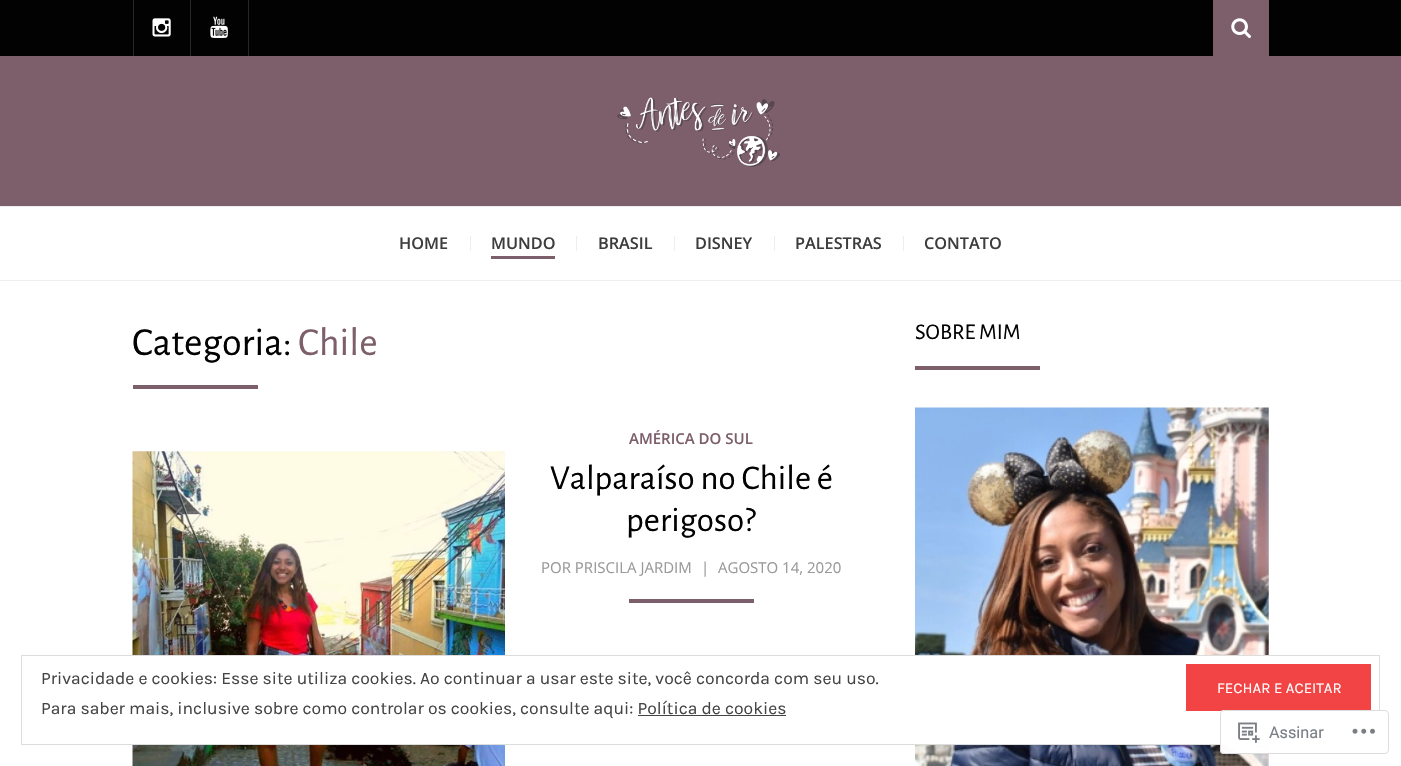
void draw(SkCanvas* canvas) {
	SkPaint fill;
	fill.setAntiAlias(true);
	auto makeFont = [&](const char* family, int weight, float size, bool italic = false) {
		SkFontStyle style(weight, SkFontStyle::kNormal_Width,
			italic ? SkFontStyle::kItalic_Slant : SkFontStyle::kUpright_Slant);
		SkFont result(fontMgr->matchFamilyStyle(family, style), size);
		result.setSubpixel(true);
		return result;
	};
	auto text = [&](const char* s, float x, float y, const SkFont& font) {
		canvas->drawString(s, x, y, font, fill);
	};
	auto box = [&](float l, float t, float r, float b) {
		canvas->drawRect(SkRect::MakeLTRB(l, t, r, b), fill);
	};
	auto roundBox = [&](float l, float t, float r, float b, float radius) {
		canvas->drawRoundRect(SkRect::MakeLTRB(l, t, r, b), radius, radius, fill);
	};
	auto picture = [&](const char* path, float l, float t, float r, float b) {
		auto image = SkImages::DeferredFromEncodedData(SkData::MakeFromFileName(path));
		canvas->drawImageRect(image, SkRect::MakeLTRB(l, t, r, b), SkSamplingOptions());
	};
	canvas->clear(0xFFFFFFFF);
	fill.setColor(0xFF020202);
	box(0, 0, 1401, 56);
	fill.setColor(0xFF262626);
	box(133, 0, 134, 56);
	picture("image0.png", 152, 18, 171, 37);
	box(248, 0, 249, 56);
	box(190, 0, 191, 56);
	picture("image1.png", 210, 16, 228, 38);
	fill.setColor(0xFF7D5F6B);
	box(1213, 0, 1269, 56);
	picture("image2.png", 1231, 18, 1251, 38);
	box(0, 56, 1401, 206);
	picture("image3.png", 617, 97, 780, 167);
	fill.setColor(0xFFEEEEEE);
	box(0, 206, 1401, 207);
	box(0, 280, 1401, 281);
	box(470, 236, 471, 251);
	fill.setColor(0xFF7D5F6B);
	box(491, 256, 555, 259);
	fill.setColor(0xFFEEEEEE);
	box(576, 236, 577, 251);
	box(674, 236, 675, 251);
	box(774, 236, 775, 251);
	box(903, 236, 904, 251);
	fill.setColor(0xFF7D5F6B);
	box(133, 385, 258, 389);
	picture("image4.png", 132, 451, 505, 766);
	box(629, 599, 754, 603);
	box(915, 366, 1040, 370);
	picture("image5.png", 915, 407, 1269, 766);
	fill.setColor(0xFFFFFFFF);
	box(132, 656, 1269, 744);
	fill.setStyle(SkPaint::kStroke_Style);
	fill.setStrokeWidth(1);
	fill.setColor(0xFFDDDDDD);
	canvas->drawRect(SkRect::MakeLTRB(21.5f, 655.5f, 1379.5f, 744.5f), fill);
	fill.setStyle(SkPaint::kFill_Style);
	fill.setColor(0xFFF24444);
	box(1186, 664, 1371, 711);
	fill.setColor(0xFF444444);
	box(638, 715, 786, 716);
	fill.setColor(0xFAFFFFFF);
	roundBox(1220, 710, 1389, 754, 4);
	fill.setStyle(SkPaint::kStroke_Style);
	fill.setColor(0xFADCDCDE);
	canvas->drawRoundRect(SkRect::MakeLTRB(1220.5f, 710.5f, 1388.5f, 753.5f), 3.5f, 3.5f, fill);
	picture("image6.png", 1238, 722, 1260, 743);
	picture("image7.png", 1352, 728, 1375, 734);
	auto font1 = makeFont("Open Sans", 600, 16.25f);
	fill.setStyle(SkPaint::kFill_Style);
	fill.setColor(0xFF3D3D3D);
	text("HOME", 399, 249, font1);
	text("MUNDO", 491, 249, font1);
	text("BRASIL", 598, 249, font1);
	text("DISNEY", 695, 249, font1);
	text("PALESTRAS", 795, 249, font1);
	text("CONTATO", 924, 249, font1);
	auto font2 = makeFont("Alegreya Sans", 400, 40);
	fill.setColor(0xFF020202);
	text("Categoria:", 132, 355, font2);
	fill.setColor(0xFF7D5F6B);
	text("Chile", 298, 355, font2);
	auto font3 = makeFont("Open Sans", 600, 15);
	text("AMÉRICA DO SUL", 629, 444, font3);
	auto font4 = makeFont("Alegreya Sans", 400, 35);
	fill.setColor(0xFF020202);
	text("Valparaíso no Chile é", 550, 489, font4);
	text("perigoso?", 626, 531, font4);
	auto font5 = makeFont("Open Sans", 400, 15);
	fill.setColor(0xFF999999);
	text("POR PRISCILA JARDIM", 541, 573, font5);
	text("|", 701, 573, font5);
	text("AGOSTO 14, 2020", 718, 573, font5);
	auto font6 = makeFont("Alegreya Sans", 400, 22.5f);
	fill.setColor(0xFF020202);
	text("SOBRE MIM", 915, 339, font6);
	auto font7 = makeFont("Karla", 400, 17.5f);
	fill.setColor(0xFF444444);
	text("Privacidade e cookies: Esse site utiliza cookies. Ao continuar a usar este site, você concorda com seu uso.", 41, 684, font7);
	auto font8 = makeFont("Karla", 400, 15);
	fill.setColor(0xFFFFFFFF);
	text("FECHAR E ACEITAR", 1217, 693, font8);
	fill.setColor(0xFF444444);
	text("Para saber mais, inclusive sobre como controlar os cookies, consulte aqui: Política de cookies", 41, 714, font7);
	auto font9 = makeFont("Roboto", 400, 16.25f);
	fill.setColor(0xFF7B7F85);
	text("Assinar", 1269, 738, font9);
}
